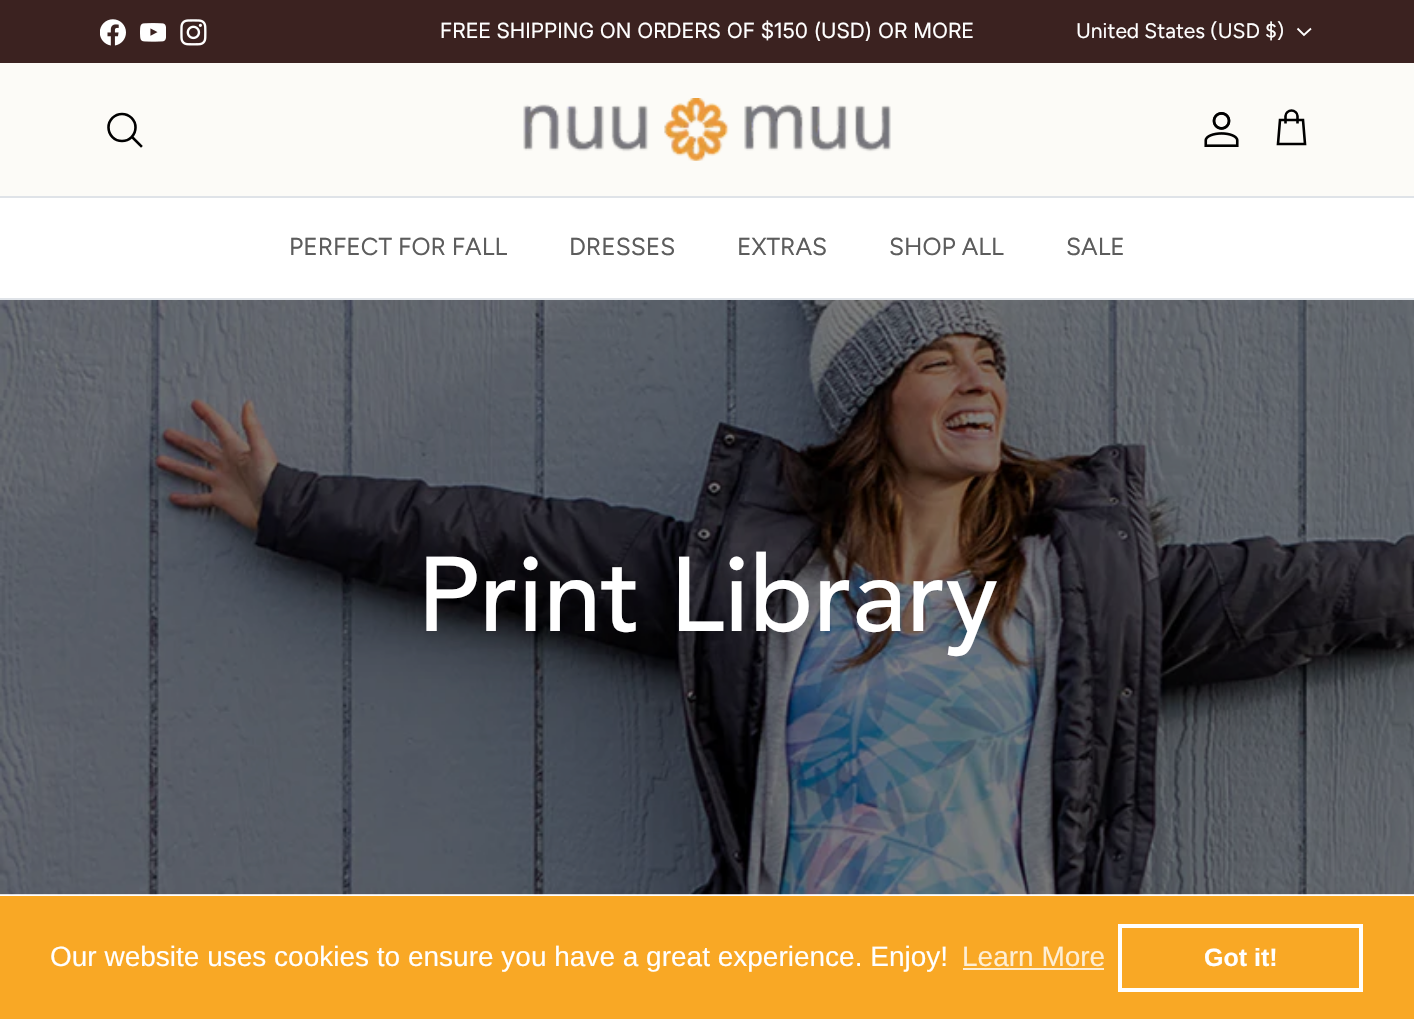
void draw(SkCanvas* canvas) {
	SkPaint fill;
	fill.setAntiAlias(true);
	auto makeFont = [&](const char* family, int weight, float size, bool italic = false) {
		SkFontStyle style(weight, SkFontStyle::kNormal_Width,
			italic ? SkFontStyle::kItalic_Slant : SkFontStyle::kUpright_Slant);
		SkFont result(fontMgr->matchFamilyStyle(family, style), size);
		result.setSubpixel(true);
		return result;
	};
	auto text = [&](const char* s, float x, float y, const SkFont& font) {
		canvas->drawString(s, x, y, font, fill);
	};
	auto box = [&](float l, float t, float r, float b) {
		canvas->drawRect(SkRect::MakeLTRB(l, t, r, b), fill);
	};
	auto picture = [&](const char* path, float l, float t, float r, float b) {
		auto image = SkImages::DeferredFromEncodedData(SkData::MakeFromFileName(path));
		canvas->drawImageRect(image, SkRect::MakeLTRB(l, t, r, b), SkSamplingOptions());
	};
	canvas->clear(0xFFFFFFFF);
	fill.setColor(0xFF3B2220);
	box(0, 0, 1414, 63);
	picture("image0.png", 100, 19, 126, 46);
	picture("image1.png", 140, 23, 166, 42);
	picture("image2.png", 180, 19, 207, 46);
	fill.setStyle(SkPaint::kStroke_Style);
	fill.setStrokeWidth(1.8f);
	fill.setColor(0xFFFFFFFF);
	canvas->drawPath(SkPathBuilder().moveTo(1311, 28.5f).lineTo(1304, 35).lineTo(1297.5f, 28.5f).detach(), fill);
	fill.setStyle(SkPaint::kFill_Style);
	fill.setColor(0xFFFCFBF7);
	box(0, 63, 1414, 196);
	fill.setColor(0xFFDFE3E8);
	box(0, 196, 1414, 198);
	fill.setStyle(SkPaint::kStroke_Style);
	fill.setStrokeWidth(2.6f);
	fill.setColor(0xFF000000);
	canvas->drawCircle(122, 127.5f, 13.5f, fill);
	fill.setStrokeCap(SkPaint::kSquare_Cap);
	canvas->drawPath(SkPathBuilder().moveTo(133, 138).lineTo(141, 146).detach(), fill);
	picture("image3.png", 523, 98, 891, 161);
	picture("image4.png", 1204, 112, 1239, 147);
	fill.setStrokeCap(SkPaint::kButt_Cap);
	canvas->drawPath(SkPathBuilder().moveTo(1297.5f, 123.5f).lineTo(1297.5f, 116).cubicTo(1297.5f, 113, 1294.5f, 110.5f, 1291.5f, 110.5f).cubicTo(1288.5f, 110.5f, 1285.5f, 113, 1285.5f, 116).lineTo(1285.5f, 123.5f).moveTo(1280, 120).lineTo(1303, 120).lineTo(1305, 144).lineTo(1278, 144).close().detach(), fill);
	fill.setStyle(SkPaint::kFill_Style);
	fill.setColor(0xFFDFE3E8);
	box(0, 298, 1414, 300);
	picture("image5.png", 0, 300, 1414, 895);
	fill.setColor(0xFFF9A825);
	box(0, 896, 1414, 1019);
	fill.setColor(0xFFFEEED3);
	box(963, 968, 1104, 970);
	fill.setStyle(SkPaint::kStroke_Style);
	fill.setStrokeWidth(4);
	fill.setColor(0xFFFFFFFF);
	canvas->drawRect(SkRect::MakeLTRB(1120, 926, 1361, 990), fill);
	auto font1 = makeFont("Inter", 400, 21);
	fill.setStyle(SkPaint::kFill_Style);
	text("FREE SHIPPING ON ORDERS OF $150 (USD) OR MORE", 440, 38, font1);
	auto font2 = makeFont("Figtree", 400, 21);
	text("United States (USD $)", 1076, 38, font2);
	auto font3 = makeFont("Figtree", 400, 24.5f);
	fill.setColor(0xFF5C5C5C);
	text("PERFECT FOR FALL", 289, 255, font3);
	text("DRESSES", 569, 255, font3);
	text("EXTRAS", 737, 255, font3);
	text("SHOP ALL", 889, 255, font3);
	text("SALE", 1066, 255, font3);
	auto font4 = makeFont("Avenir", 500, 105);
	fill.setColor(0xFFFFFFFF);
	text("Print Library", 417, 631, font4);
	auto font5 = makeFont("Liberation Sans", 400, 28);
	text("Our website uses cookies to ensure you have a great experience. Enjoy!", 50, 966, font5);
	fill.setColor(0xFFFEEED3);
	text("Learn More", 962, 966, font5);
	auto font6 = makeFont("Liberation Sans", 700, 25);
	fill.setColor(0xFFFFFFFF);
	text("Got it!", 1204, 966, font6);
}
